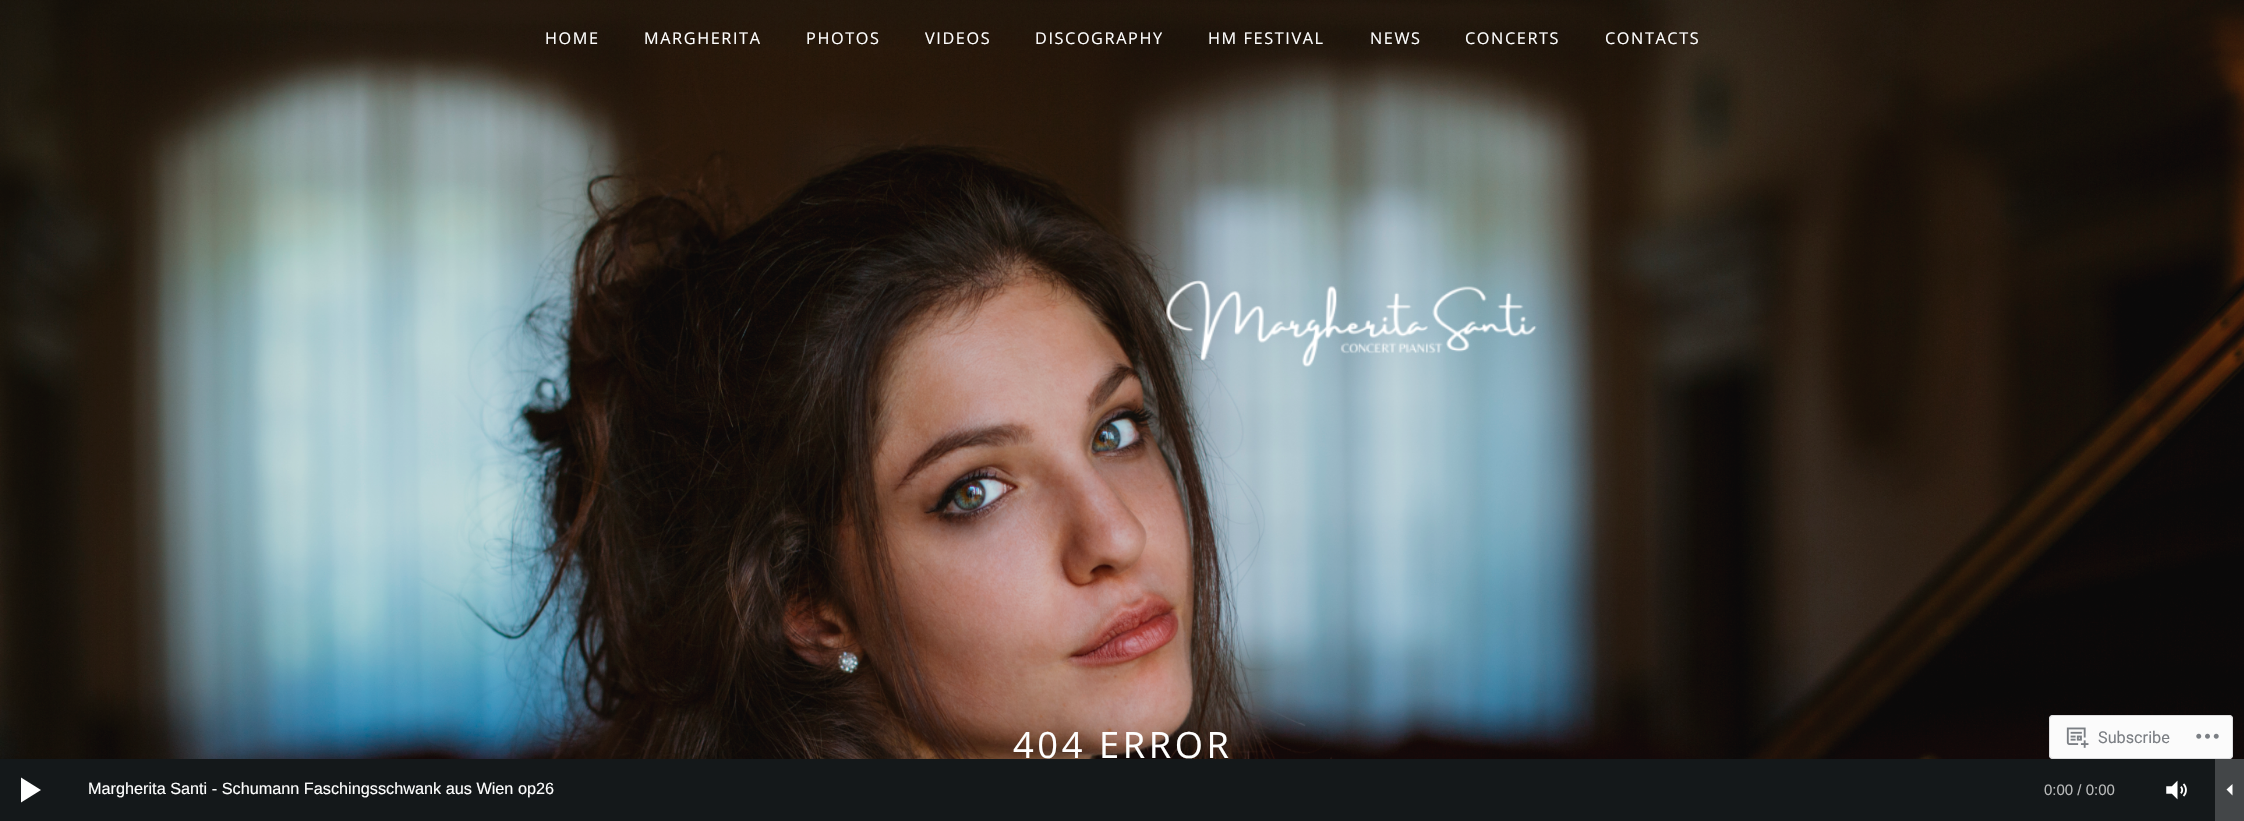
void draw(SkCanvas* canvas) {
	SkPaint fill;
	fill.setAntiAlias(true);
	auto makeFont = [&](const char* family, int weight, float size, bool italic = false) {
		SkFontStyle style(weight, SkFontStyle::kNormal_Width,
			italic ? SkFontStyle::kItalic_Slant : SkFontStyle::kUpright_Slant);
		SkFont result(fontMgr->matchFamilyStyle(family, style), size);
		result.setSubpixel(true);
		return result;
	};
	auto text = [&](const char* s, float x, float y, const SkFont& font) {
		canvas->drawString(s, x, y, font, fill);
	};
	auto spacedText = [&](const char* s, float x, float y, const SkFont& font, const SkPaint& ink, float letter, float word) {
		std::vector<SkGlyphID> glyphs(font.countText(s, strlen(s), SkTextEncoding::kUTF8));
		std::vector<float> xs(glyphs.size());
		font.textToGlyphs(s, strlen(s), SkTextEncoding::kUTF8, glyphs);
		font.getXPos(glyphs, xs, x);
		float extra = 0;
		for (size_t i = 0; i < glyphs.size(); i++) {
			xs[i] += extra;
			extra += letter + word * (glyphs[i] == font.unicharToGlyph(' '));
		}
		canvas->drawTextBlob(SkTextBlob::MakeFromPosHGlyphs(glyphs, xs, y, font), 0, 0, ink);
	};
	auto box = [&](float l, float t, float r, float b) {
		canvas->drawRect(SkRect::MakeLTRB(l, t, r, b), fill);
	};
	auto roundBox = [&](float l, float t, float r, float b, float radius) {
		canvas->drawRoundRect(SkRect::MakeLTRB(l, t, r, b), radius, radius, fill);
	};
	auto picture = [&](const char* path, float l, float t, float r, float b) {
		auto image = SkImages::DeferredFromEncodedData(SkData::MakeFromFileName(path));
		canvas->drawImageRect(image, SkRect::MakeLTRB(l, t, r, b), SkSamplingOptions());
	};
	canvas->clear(0xFFFFFFFF);
	picture("image0.png", 0, 0, 2244, 759);
	picture("image1.png", 1166, 280, 1537, 367);
	fill.setColor(0xFAFFFFFF);
	roundBox(2049, 715, 2233, 759, 4);
	fill.setStyle(SkPaint::kStroke_Style);
	fill.setStrokeWidth(1);
	fill.setColor(0xFADCDCDE);
	canvas->drawRoundRect(SkRect::MakeLTRB(2049.5f, 715.5f, 2232.5f, 758.5f), 3.5f, 3.5f, fill);
	picture("image2.png", 2066, 727, 2089, 748);
	picture("image3.png", 2196, 733, 2219, 739);
	fill.setStyle(SkPaint::kFill_Style);
	fill.setColor(0xFF14181A);
	box(0, 759, 2215, 821);
	fill.setColor(0xFFFFFFFF);
	canvas->drawPath(SkPathBuilder().moveTo(41, 790).lineTo(21, 802.5f).lineTo(21, 777.5f).close().detach(), fill);
	picture("image4.png", 2166, 780, 2187, 800);
	fill.setColor(0xFF434648);
	box(2215, 759, 2244, 821);
	fill.setColor(0xFFFFFFFF);
	canvas->drawPath(SkPathBuilder().moveTo(2232.5f, 795.5f).lineTo(2226.5f, 789.5f).lineTo(2232.5f, 784).close().detach(), fill);
	auto font1 = makeFont("Open Sans", 400, 16.25f);
	spacedText("HOME", 545, 44, font1, fill, 1.6f, 0);
	spacedText("MARGHERITA", 644, 44, font1, fill, 1.6f, 0);
	spacedText("PHOTOS", 806, 44, font1, fill, 1.6f, 0);
	spacedText("VIDEOS", 925, 44, font1, fill, 1.6f, 0);
	spacedText("DISCOGRAPHY", 1035, 44, font1, fill, 1.6f, 0);
	spacedText("HM FESTIVAL", 1208, 44, font1, fill, 1.6f, 0);
	spacedText("NEWS", 1370, 44, font1, fill, 1.6f, 0);
	spacedText("CONCERTS", 1465, 44, font1, fill, 1.6f, 0);
	spacedText("CONTACTS", 1605, 44, font1, fill, 1.6f, 0);
	auto font2 = makeFont("Open Sans", 400, 36.25f);
	spacedText("404 ERROR", 1013, 758, font2, fill, 3.6f, 0);
	auto font3 = makeFont("Roboto", 400, 16.25f);
	fill.setColor(0xFF7B7F84);
	text("Subscribe", 2098, 743, font3);
	auto font4 = makeFont("Liberation Sans", 400, 16.25f);
	fill.setColor(0xFFFFFFFF);
	text("Margherita Santi - Schumann Faschingsschwank aus Wien op26", 88, 794, font4);
	auto font5 = makeFont("Liberation Sans", 400, 15);
	fill.setColor(0xFFB9BABA);
	text("0:00 / 0:00", 2044, 795, font5);
}
